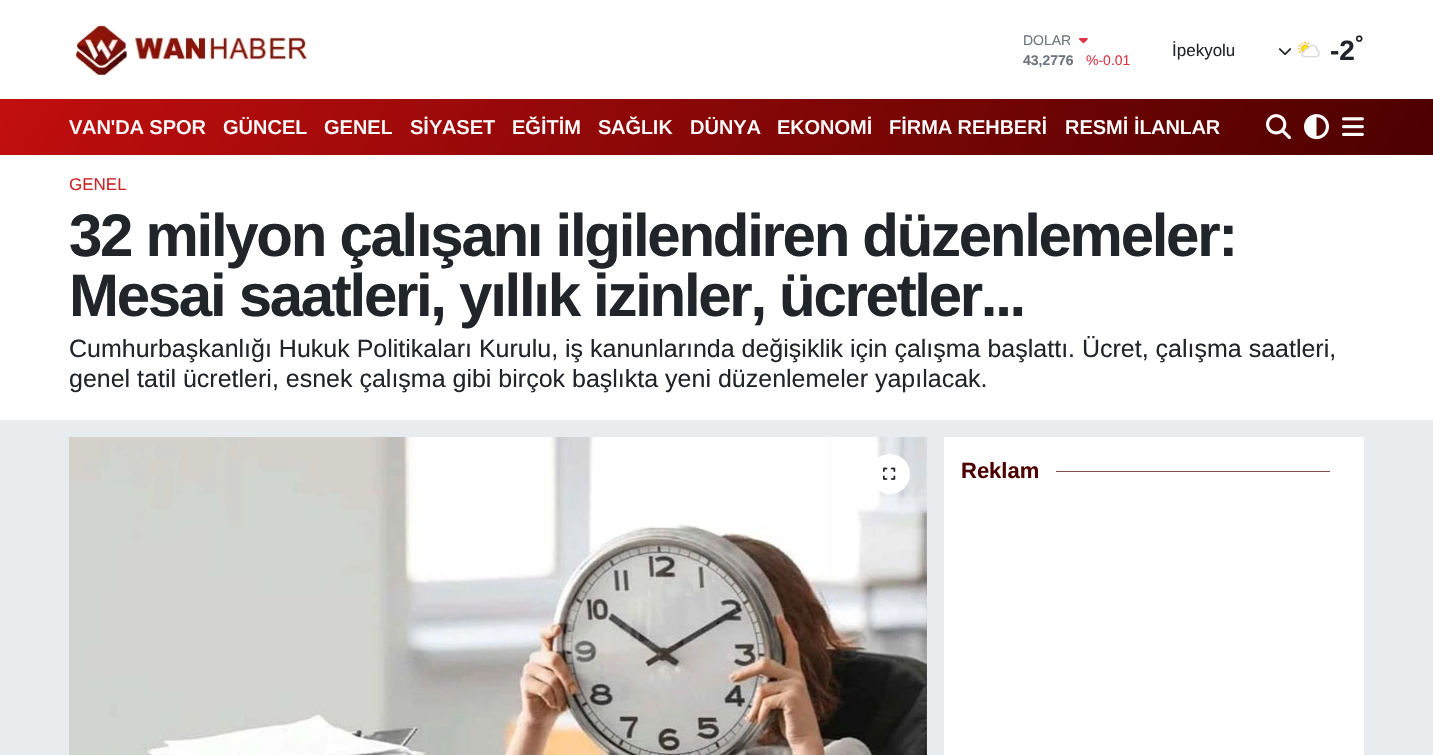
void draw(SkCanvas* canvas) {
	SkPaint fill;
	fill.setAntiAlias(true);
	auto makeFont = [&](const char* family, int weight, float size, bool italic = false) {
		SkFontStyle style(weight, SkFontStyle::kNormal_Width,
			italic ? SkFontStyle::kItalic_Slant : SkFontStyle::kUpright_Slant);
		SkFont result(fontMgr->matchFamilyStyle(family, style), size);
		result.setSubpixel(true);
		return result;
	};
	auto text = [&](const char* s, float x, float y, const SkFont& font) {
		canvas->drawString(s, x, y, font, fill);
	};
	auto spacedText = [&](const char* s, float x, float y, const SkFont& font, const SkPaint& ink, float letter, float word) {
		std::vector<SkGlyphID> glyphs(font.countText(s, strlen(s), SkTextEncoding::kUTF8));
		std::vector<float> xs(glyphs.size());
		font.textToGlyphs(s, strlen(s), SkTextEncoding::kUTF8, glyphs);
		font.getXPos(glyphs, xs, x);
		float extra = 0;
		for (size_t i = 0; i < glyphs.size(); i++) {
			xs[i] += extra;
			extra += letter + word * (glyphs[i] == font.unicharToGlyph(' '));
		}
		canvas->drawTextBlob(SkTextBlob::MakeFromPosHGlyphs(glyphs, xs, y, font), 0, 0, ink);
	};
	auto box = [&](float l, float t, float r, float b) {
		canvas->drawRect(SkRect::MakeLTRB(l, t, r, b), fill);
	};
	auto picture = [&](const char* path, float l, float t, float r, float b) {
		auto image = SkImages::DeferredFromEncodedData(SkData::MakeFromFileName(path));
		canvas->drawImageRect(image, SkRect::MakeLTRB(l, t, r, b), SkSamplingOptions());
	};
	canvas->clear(0xFFE9ECEF);
	fill.setColor(0xFFFFFFFF);
	box(0, 0, 1433, 99);
	picture("image0.png", 73, 24, 308, 77);
	picture("image1.png", 1079, 38, 1088, 44);
	picture("image2.png", 1279, 48, 1291, 55);
	picture("image3.png", 1297, 41, 1320, 58);
	{
		const SkColor colors[] = {0xFFC20E0E, 0xFF4C0000};
		const float stops[] = {0, 1};
		const SkPoint ends[] = {{167, -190}, {1266, 444}};
		fill.setShader(SkGradientShader::MakeLinear(ends, colors, stops, 2, SkTileMode::kClamp));
		fill.setAlpha(255);
	}
	box(0, 99, 1433, 155);
	picture("image4.png", 1266, 114, 1291, 140);
	picture("image5.png", 1304, 114, 1329, 140);
	picture("image6.png", 1342, 117, 1364, 136);
	fill.setShader(nullptr);
	fill.setColor(0xFFFFFFFF);
	box(0, 155, 1433, 420);
	picture("image7.png", 69, 437, 927, 755);
	canvas->drawCircle(890, 474, 20, fill);
	picture("image8.png", 883, 467, 896, 480);
	box(944, 437, 1364, 755);
	fill.setColor(0xFF824D4D);
	box(1056, 471, 1330, 472);
	auto font1 = makeFont("Arimo", 400, 14);
	fill.setColor(0xFF6C757D);
	text("DOLAR", 1023, 45, font1);
	auto font2 = makeFont("Arimo", 700, 14);
	text("43,2776", 1023, 65, font2);
	fill.setColor(0xFFDC3545);
	text("%-0.01", 1086, 65, font1);
	auto font3 = makeFont("Arimo", 400, 17);
	fill.setColor(0xFF212529);
	text("İpekyolu", 1172, 56, font3);
	auto font4 = makeFont("Arimo", 700, 21);
	text("°", 1355, 50, font4);
	auto font5 = makeFont("Arimo", 700, 28);
	text("-2", 1330, 60, font5);
	auto font6 = makeFont("Arimo", 600, 20);
	fill.setColor(0xFFFFFFFF);
	text("VAN'DA SPOR", 69, 134, font6);
	text("GÜNCEL", 223, 134, font6);
	text("GENEL", 324, 134, font6);
	text("SİYASET", 410, 134, font6);
	text("EĞİTİM", 512, 134, font6);
	text("SAĞLIK", 598, 134, font6);
	text("DÜNYA", 690, 134, font6);
	text("EKONOMİ", 777, 134, font6);
	text("FİRMA REHBERİ", 889, 134, font6);
	text("RESMİ İLANLAR", 1065, 134, font6);
	fill.setColor(0xFFCA2527);
	text("GENEL", 69, 190, font3);
	auto font7 = makeFont("Arimo", 700, 60);
	fill.setColor(0xFF212529);
	spacedText("32 milyon çalışanı ilgilendiren düzenlemeler:", 69, 256, font7, fill, -2.3f, 0);
	spacedText("Mesai saatleri, yıllık izinler, ücretler...", 69, 316, font7, fill, -2.3f, 0);
	auto font8 = makeFont("Arimo", 400, 25);
	text("Cumhurbaşkanlığı Hukuk Politikaları Kurulu, iş kanunlarında değişiklik için çalışma başlattı. Ücret, çalışma saatleri,", 69, 357, font8);
	text("genel tatil ücretleri, esnek çalışma gibi birçok başlıkta yeni düzenlemeler yapılacak.", 69, 387, font8);
	auto font9 = makeFont("Arimo", 700, 22);
	fill.setColor(0xFF4C0000);
	text("Reklam", 961, 478, font9);
}
